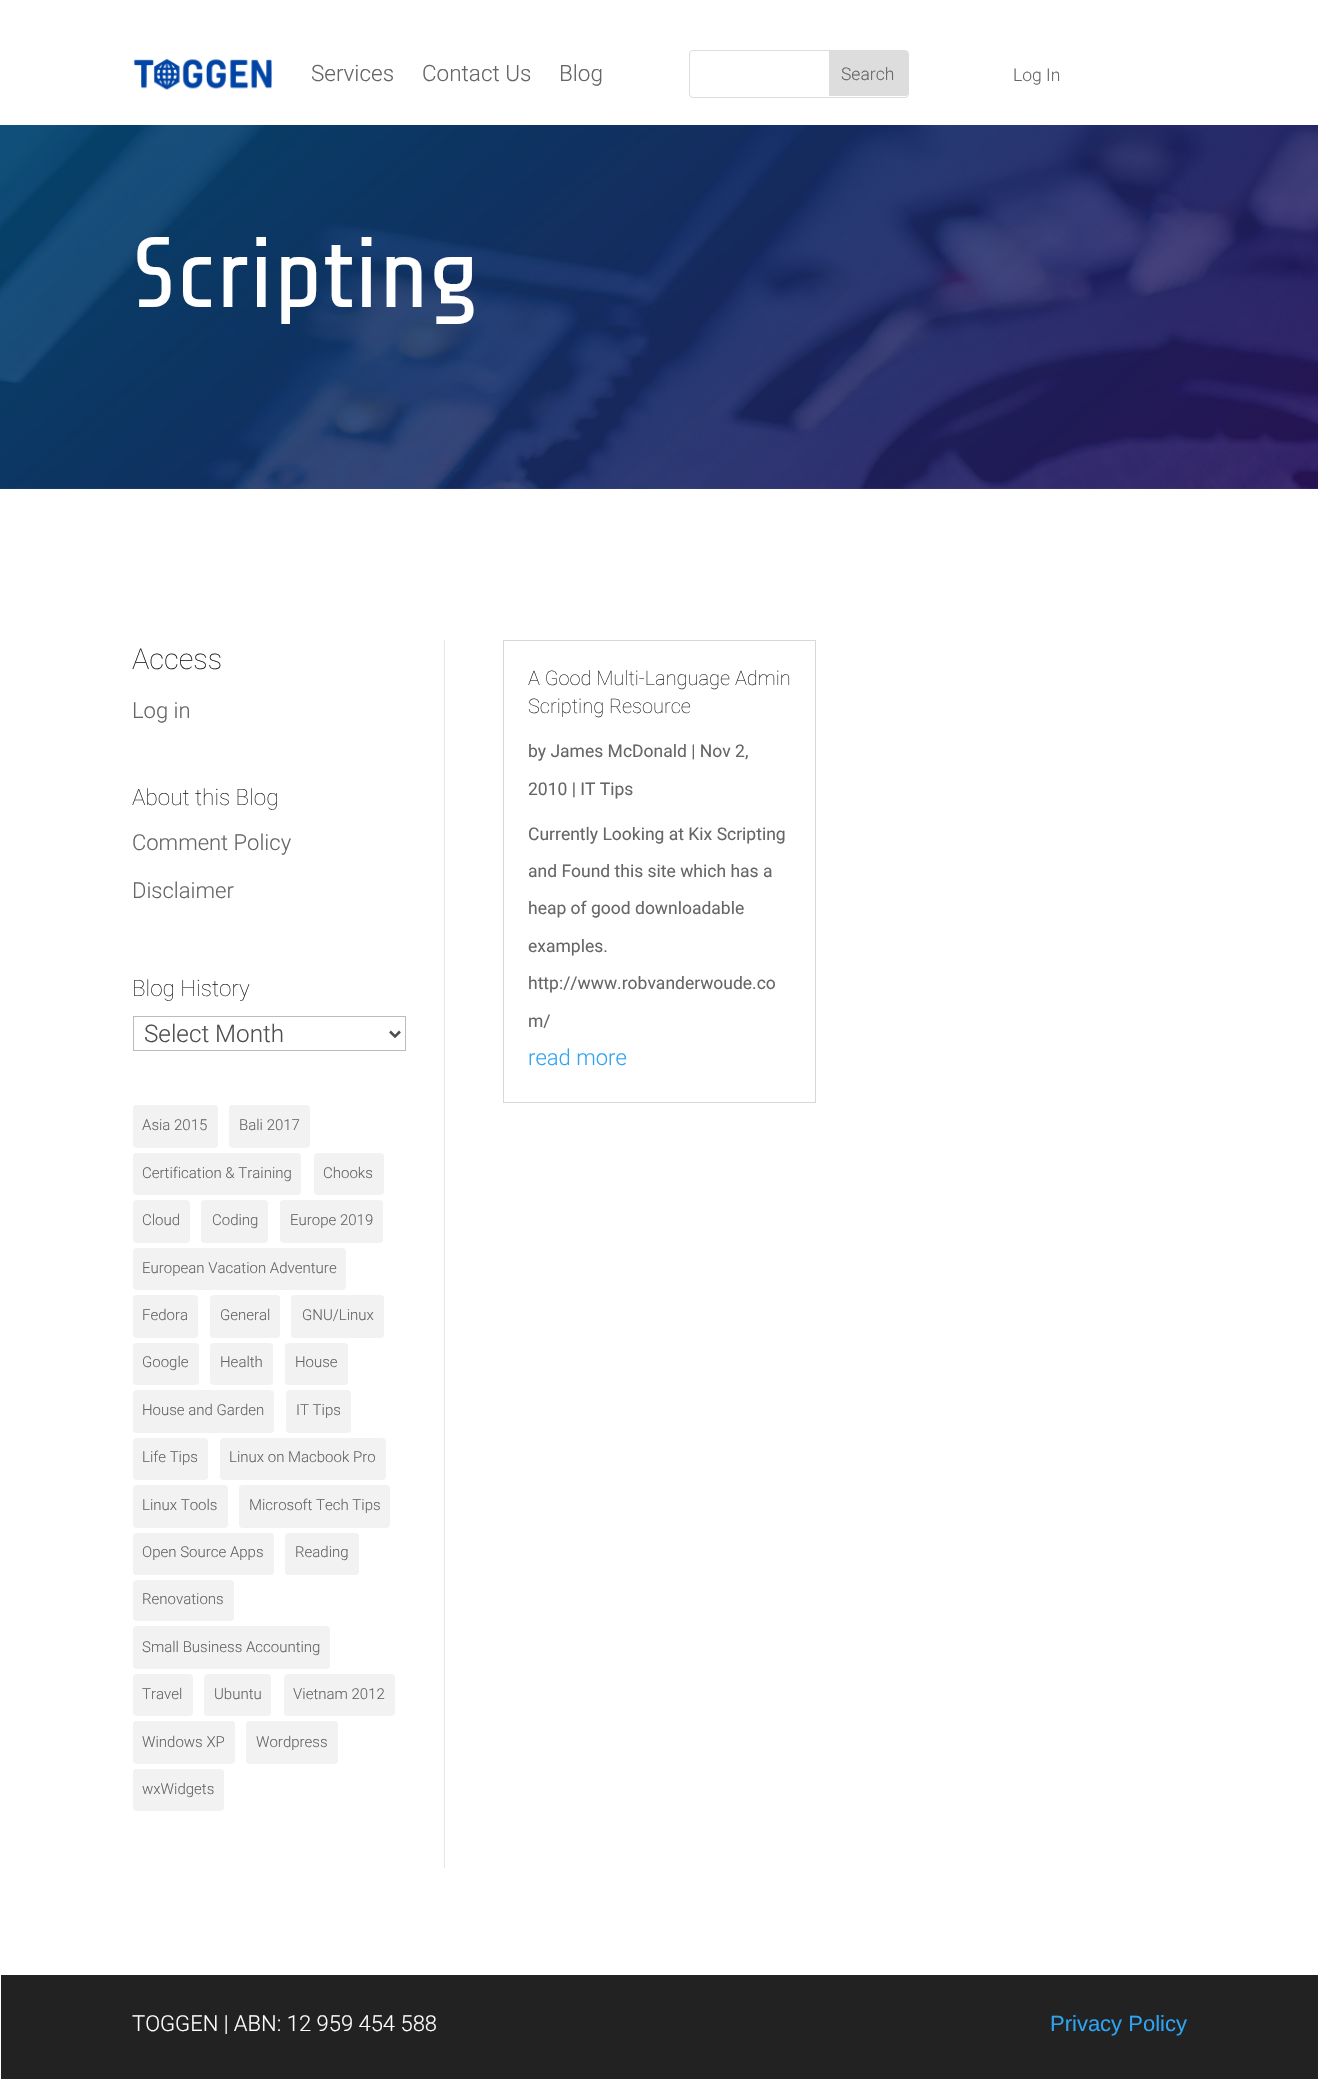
void draw(SkCanvas* canvas) {
	SkPaint fill;
	fill.setAntiAlias(true);
	auto makeFont = [&](const char* family, int weight, float size, bool italic = false) {
		SkFontStyle style(weight, SkFontStyle::kNormal_Width,
			italic ? SkFontStyle::kItalic_Slant : SkFontStyle::kUpright_Slant);
		SkFont result(fontMgr->matchFamilyStyle(family, style), size);
		result.setSubpixel(true);
		return result;
	};
	auto text = [&](const char* s, float x, float y, const SkFont& font) {
		canvas->drawString(s, x, y, font, fill);
	};
	auto box = [&](float l, float t, float r, float b) {
		canvas->drawRect(SkRect::MakeLTRB(l, t, r, b), fill);
	};
	auto roundBox = [&](float l, float t, float r, float b, float radius) {
		canvas->drawRoundRect(SkRect::MakeLTRB(l, t, r, b), radius, radius, fill);
	};
	auto picture = [&](const char* path, float l, float t, float r, float b) {
		auto image = SkImages::DeferredFromEncodedData(SkData::MakeFromFileName(path));
		canvas->drawImageRect(image, SkRect::MakeLTRB(l, t, r, b), SkSamplingOptions());
	};
	canvas->clear(0xFFFFFFFF);
	picture("image0.png", 133, 59, 272, 90);
	fill.setStyle(SkPaint::kStroke_Style);
	fill.setStrokeWidth(1);
	fill.setColor(0xFFDDDDDD);
	canvas->drawRoundRect(SkRect::MakeLTRB(689.5f, 50.5f, 908.5f, 97.5f), 3.5f, 3.5f, fill);
	fill.setStyle(SkPaint::kFill_Style);
	canvas->drawPath(SkPathBuilder().moveTo(829, 51).lineTo(905.5f, 51).cubicTo(907, 51, 908, 52, 908, 53.5f).lineTo(908, 93.5f).cubicTo(908, 95, 907, 96, 905.5f, 96).lineTo(829, 96).close().detach(), fill);
	picture("image1.png", 0, 125, 1318, 489);
	{
		const SkColor colors[] = {0xE6004872, 0xCC291160};
		const float stops[] = {0, 1};
		const SkPoint ends[] = {{297, -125}, {1021, 738}};
		fill.setShader(SkGradientShader::MakeLinear(ends, colors, stops, 2, SkTileMode::kClamp));
		fill.setAlpha(255);
	}
	box(0, 125, 1318, 489);
	fill.setShader(nullptr);
	fill.setColor(0xFFE6E6E6);
	box(444, 640, 445, 1868);
	fill.setStyle(SkPaint::kStroke_Style);
	fill.setColor(0xFFBBBBBB);
	canvas->drawRect(SkRect::MakeLTRB(133.5f, 1016.5f, 405.5f, 1050.5f), fill);
	fill.setStrokeWidth(2.5f);
	fill.setColor(0xFF4E4E4E);
	canvas->drawPath(SkPathBuilder().moveTo(390, 1031.5f).lineTo(395, 1036.5f).lineTo(400, 1031.5f).detach(), fill);
	fill.setStyle(SkPaint::kFill_Style);
	fill.setColor(0xFFF2F2F2);
	roundBox(133, 1105, 218, 1148, 4);
	roundBox(229, 1105, 310, 1148, 4);
	roundBox(133, 1153, 301, 1195, 4);
	roundBox(314, 1153, 384, 1195, 4);
	roundBox(133, 1200, 190, 1243, 4);
	roundBox(201, 1200, 268, 1243, 4);
	roundBox(280, 1200, 383, 1243, 4);
	roundBox(133, 1248, 346, 1290, 4);
	roundBox(133, 1295, 198, 1338, 4);
	roundBox(210, 1295, 280, 1338, 4);
	roundBox(291, 1295, 384, 1338, 4);
	roundBox(133, 1343, 199, 1385, 4);
	roundBox(210, 1343, 273, 1385, 4);
	roundBox(285, 1343, 348, 1385, 4);
	roundBox(133, 1390, 274, 1433, 4);
	roundBox(286, 1390, 351, 1433, 4);
	roundBox(133, 1438, 208, 1480, 4);
	roundBox(220, 1438, 386, 1480, 4);
	roundBox(133, 1485, 228, 1528, 4);
	roundBox(239, 1485, 390, 1528, 4);
	roundBox(133, 1533, 274, 1575, 4);
	roundBox(285, 1533, 359, 1575, 4);
	roundBox(133, 1580, 234, 1621, 4);
	roundBox(133, 1626, 330, 1669, 4);
	roundBox(133, 1674, 193, 1716, 4);
	roundBox(204, 1674, 271, 1716, 4);
	roundBox(284, 1674, 395, 1716, 4);
	roundBox(133, 1721, 235, 1764, 4);
	roundBox(246, 1721, 338, 1764, 4);
	roundBox(133, 1769, 224, 1811, 4);
	fill.setStyle(SkPaint::kStroke_Style);
	fill.setStrokeWidth(1);
	fill.setColor(0xFFD8D8D8);
	canvas->drawRect(SkRect::MakeLTRB(503.5f, 640.5f, 815.5f, 1102.5f), fill);
	fill.setStyle(SkPaint::kFill_Style);
	fill.setColor(0xFF222222);
	box(1, 1975, 1318, 2079);
	auto font1 = makeFont("Roboto", 300, 22.5f);
	fill.setColor(0xFF666666);
	text("Services", 311, 81, font1);
	text("Contact Us", 422, 81, font1);
	text("Blog", 559, 81, font1);
	auto font2 = makeFont("Roboto", 300, 17.5f);
	text("Search", 841, 80, font2);
	text("Log In", 1013, 81, font2);
	auto font3 = makeFont("Share Tech", 400, 100);
	fill.setColor(0xFFFFFFFF);
	text("Scripting", 132, 307, font3);
	auto font4 = makeFont("Roboto", 100, 29);
	fill.setColor(0xFF222222);
	text("Access", 132, 669, font4);
	auto font5 = makeFont("Roboto", 300, 22);
	fill.setColor(0xFF666666);
	text("Log in", 132, 718, font5);
	auto font6 = makeFont("Roboto", 100, 22.5f);
	fill.setColor(0xFF222222);
	text("About this Blog", 132, 805, font6);
	fill.setColor(0xFF666666);
	text("Comment Policy", 132, 850, font5);
	text("Disclaimer", 132, 898, font5);
	fill.setColor(0xFF222222);
	text("Blog History", 132, 996, font6);
	auto font7 = makeFont("Roboto", 300, 24.25f);
	fill.setColor(0xFF4E4E4E);
	text("Select Month", 144, 1042, font7);
	auto font8 = makeFont("Roboto", 300, 15);
	fill.setColor(0xFF666666);
	text("Asia 2015", 142, 1130, font8);
	text("Bali 2017", 239, 1130, font8);
	text("Certification & Training", 142, 1178, font8);
	text("Chooks", 323, 1178, font8);
	text("Cloud", 142, 1225, font8);
	text("Coding", 212, 1225, font8);
	text("Europe 2019", 290, 1225, font8);
	text("European Vacation Adventure", 142, 1273, font8);
	text("Fedora", 142, 1320, font8);
	text("General", 220, 1320, font8);
	text("GNU/Linux", 302, 1320, font8);
	text("Google", 142, 1367, font8);
	text("Health", 220, 1367, font8);
	text("House", 295, 1367, font8);
	text("House and Garden", 142, 1415, font8);
	text("IT Tips", 296, 1415, font8);
	text("Life Tips", 142, 1462, font8);
	text("Linux on Macbook Pro", 229, 1462, font8);
	text("Linux Tools", 142, 1510, font8);
	text("Microsoft Tech Tips", 249, 1510, font8);
	text("Open Source Apps", 142, 1557, font8);
	text("Reading", 295, 1557, font8);
	text("Renovations", 142, 1604, font8);
	text("Small Business Accounting", 142, 1652, font8);
	text("Travel", 142, 1699, font8);
	text("Ubuntu", 214, 1699, font8);
	text("Vietnam 2012", 293, 1699, font8);
	text("Windows XP", 142, 1747, font8);
	text("Wordpress", 256, 1747, font8);
	text("wxWidgets", 142, 1794, font8);
	auto font9 = makeFont("Roboto", 100, 20);
	fill.setColor(0xFF222222);
	text("A Good Multi-Language Admin", 528, 685, font9);
	text("Scripting Resource", 528, 713, font9);
	auto font10 = makeFont("Roboto", 400, 17.5f);
	fill.setColor(0xFF666666);
	text("by James McDonald | Nov 2,", 528, 757, font10);
	text("2010 | IT Tips", 528, 795, font10);
	text("Currently Looking at Kix Scripting", 528, 840, font10);
	text("and Found this site which has a", 528, 877, font10);
	text("heap of good downloadable", 528, 914, font10);
	text("examples.", 528, 952, font10);
	text("http://www.robvanderwoude.co", 528, 989, font10);
	text("m/", 528, 1027, font10);
	fill.setColor(0xFF2EA3F2);
	text("read more", 528, 1065, font5);
	fill.setColor(0xFFFFFFFF);
	text("TOGGEN | ABN: 12 959 454 588", 132, 2031, font5);
	auto font11 = makeFont("Liberation Sans", 400, 22);
	fill.setColor(0xFF2EA3F2);
	text("Privacy Policy", 1050, 2031, font11);
}
